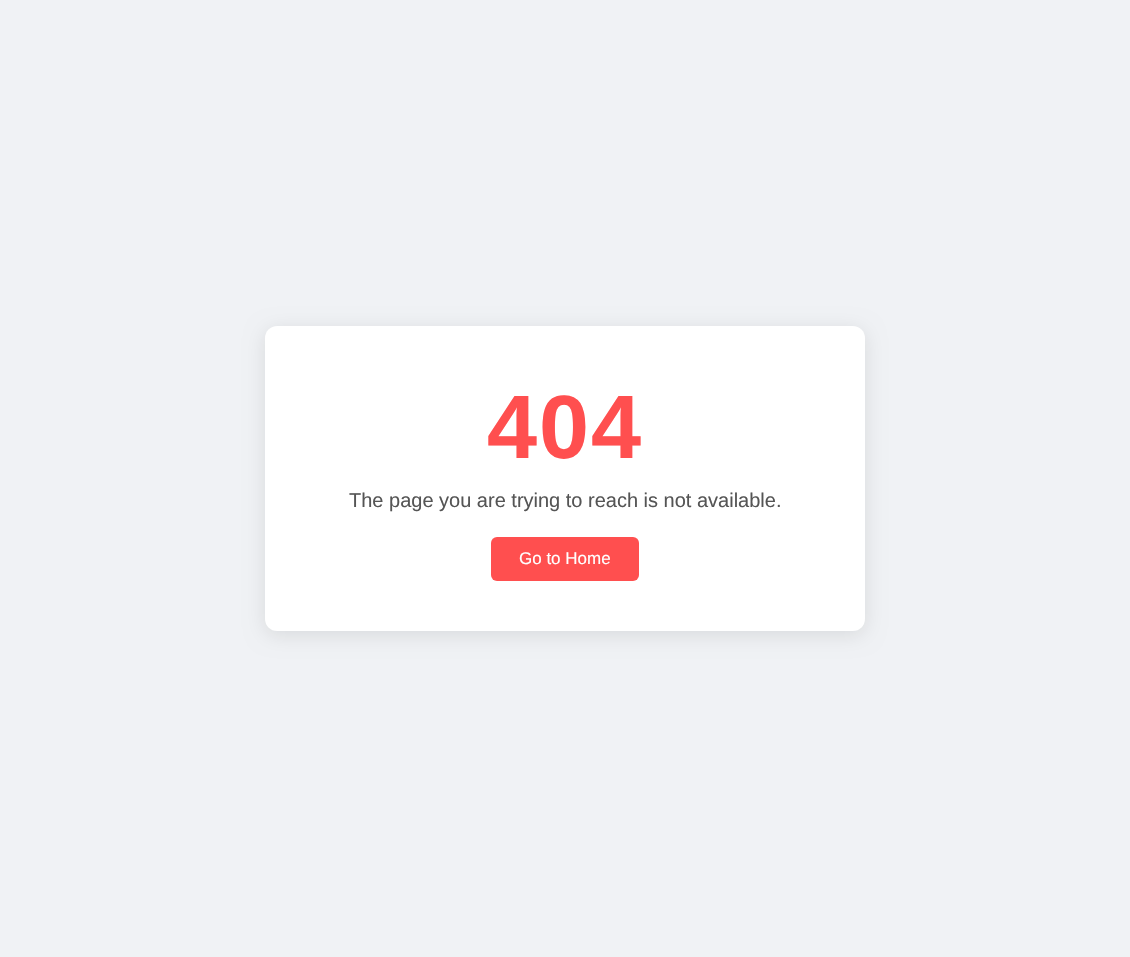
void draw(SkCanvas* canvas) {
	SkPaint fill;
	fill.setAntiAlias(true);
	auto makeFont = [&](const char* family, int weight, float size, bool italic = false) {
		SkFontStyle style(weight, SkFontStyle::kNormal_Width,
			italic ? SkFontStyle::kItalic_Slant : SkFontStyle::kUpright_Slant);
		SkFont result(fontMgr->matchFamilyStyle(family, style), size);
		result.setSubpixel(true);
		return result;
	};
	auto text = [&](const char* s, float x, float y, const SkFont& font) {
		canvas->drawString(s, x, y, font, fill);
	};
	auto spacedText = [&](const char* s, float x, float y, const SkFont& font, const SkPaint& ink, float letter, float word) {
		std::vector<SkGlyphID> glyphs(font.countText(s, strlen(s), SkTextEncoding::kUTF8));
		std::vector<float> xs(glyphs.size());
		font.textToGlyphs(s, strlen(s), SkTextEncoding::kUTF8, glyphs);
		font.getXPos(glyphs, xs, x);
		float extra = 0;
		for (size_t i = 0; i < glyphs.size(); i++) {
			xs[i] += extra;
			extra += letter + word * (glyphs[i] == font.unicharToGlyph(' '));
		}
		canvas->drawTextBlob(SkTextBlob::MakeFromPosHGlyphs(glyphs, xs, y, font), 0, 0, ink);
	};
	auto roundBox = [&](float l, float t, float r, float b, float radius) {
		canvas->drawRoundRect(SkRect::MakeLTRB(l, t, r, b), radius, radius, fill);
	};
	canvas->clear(0xFFF0F2F5);
	fill.setColor(0x1A000000);
	fill.setMaskFilter(SkMaskFilter::MakeBlur(kNormal_SkBlurStyle, 10));
	canvas->drawRoundRect(SkRect::MakeLTRB(265, 330, 865, 635), 12, 12, fill);
	fill.setMaskFilter(nullptr);
	fill.setColor(0xFFFFFFFF);
	roundBox(265, 326, 865, 631, 12);
	fill.setColor(0xFFFF4F4F);
	roundBox(491, 537, 639, 581, 6);
	auto font1 = makeFont("Liberation Sans", 700, 90);
	spacedText("404", 487, 458, font1, fill, 2, 0);
	auto font2 = makeFont("Liberation Sans", 400, 20);
	fill.setColor(0xFF555555);
	text("The page you are trying to reach is not available.", 349, 507, font2);
	auto font3 = makeFont("Liberation Sans", 400, 17);
	fill.setColor(0xFFFFFFFF);
	text("Go to Home", 519, 564, font3);
}
